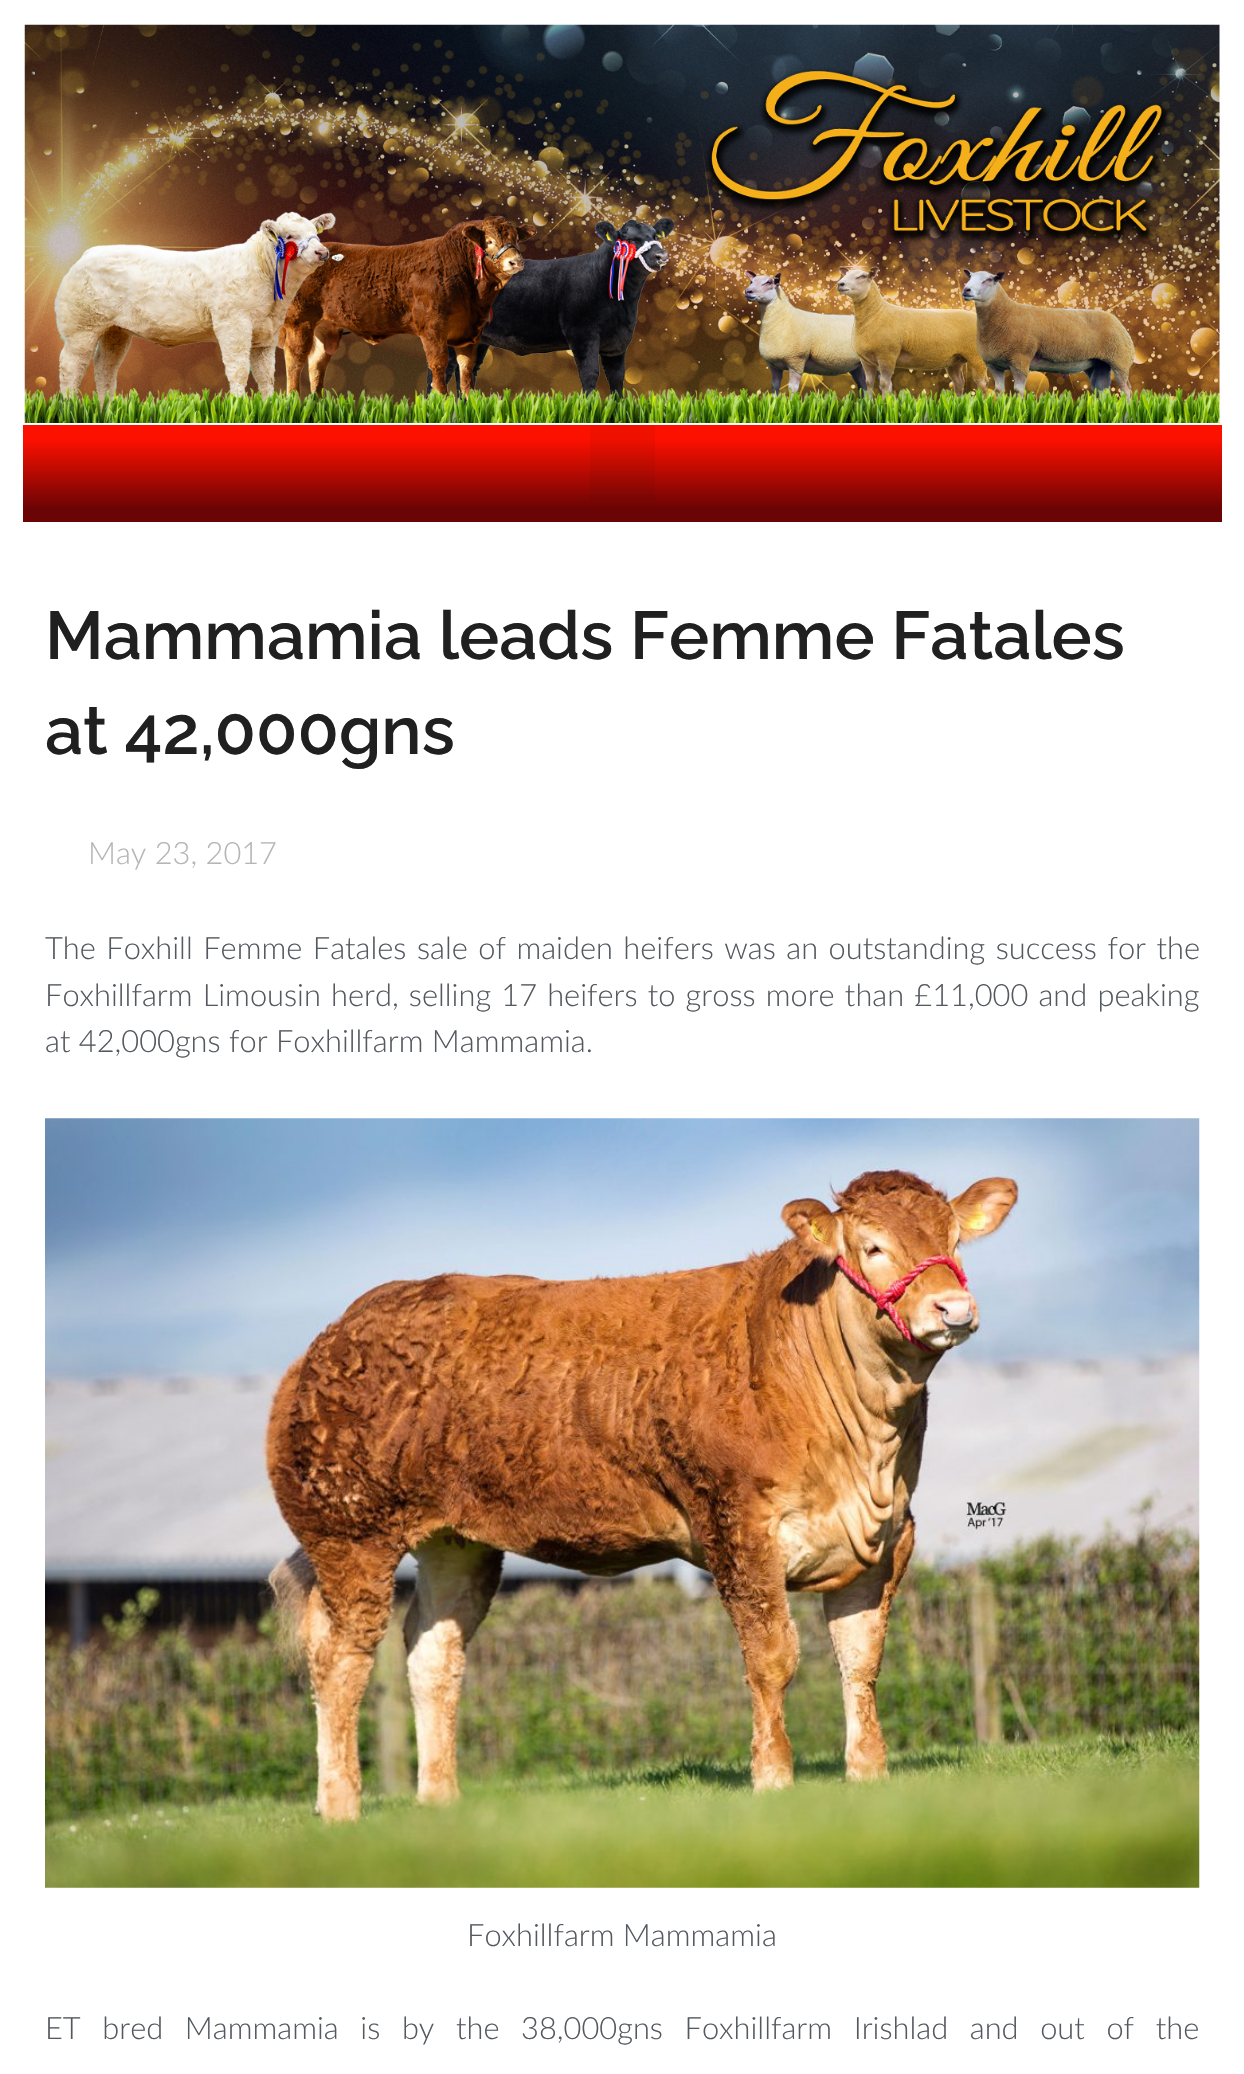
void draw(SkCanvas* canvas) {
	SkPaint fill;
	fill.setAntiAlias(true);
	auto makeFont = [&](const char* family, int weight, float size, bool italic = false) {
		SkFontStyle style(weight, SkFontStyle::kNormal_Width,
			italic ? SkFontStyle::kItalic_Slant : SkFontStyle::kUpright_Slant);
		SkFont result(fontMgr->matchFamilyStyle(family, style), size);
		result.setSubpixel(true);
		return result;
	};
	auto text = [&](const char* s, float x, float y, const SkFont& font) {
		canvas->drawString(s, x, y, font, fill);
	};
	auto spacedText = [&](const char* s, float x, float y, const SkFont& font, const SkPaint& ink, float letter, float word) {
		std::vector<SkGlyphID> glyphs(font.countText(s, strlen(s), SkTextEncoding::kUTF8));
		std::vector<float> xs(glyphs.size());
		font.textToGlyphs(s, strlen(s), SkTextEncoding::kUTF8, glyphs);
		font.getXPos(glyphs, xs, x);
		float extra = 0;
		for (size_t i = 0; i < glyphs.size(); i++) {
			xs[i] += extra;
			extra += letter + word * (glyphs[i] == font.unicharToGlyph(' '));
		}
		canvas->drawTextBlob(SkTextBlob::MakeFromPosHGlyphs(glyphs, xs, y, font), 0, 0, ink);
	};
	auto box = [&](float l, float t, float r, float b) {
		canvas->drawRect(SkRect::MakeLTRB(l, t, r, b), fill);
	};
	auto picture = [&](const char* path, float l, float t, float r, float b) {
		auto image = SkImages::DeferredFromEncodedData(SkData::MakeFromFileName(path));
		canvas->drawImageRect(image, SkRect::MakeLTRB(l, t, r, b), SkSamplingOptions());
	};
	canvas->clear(0xFFFFFFFF);
	picture("image0.png", 24, 24, 1220, 423);
	{
		const SkColor colors[] = {0xFFFC1000, 0xFF6B0404};
		const float stops[] = {0.15f, 0.86f};
		const SkPoint ends[] = {{622, 425}, {622, 522}};
		fill.setShader(SkGradientShader::MakeLinear(ends, colors, stops, 2, SkTileMode::kClamp));
		fill.setAlpha(255);
	}
	box(23, 425, 1222, 522);
	fill.setShader(nullptr);
	fill.setColor(0x0D000000);
	box(590, 425, 655, 500);
	picture("image1.png", 45, 1118, 1200, 1888);
	auto font1 = makeFont("Raleway", 600, 67.5f);
	fill.setColor(0xFF202020);
	text("Mammamia leads Femme Fatales", 45, 659, font1);
	text("at 42,000gns", 45, 754, font1);
	auto font2 = makeFont("Lato", 300, 30.8f);
	fill.setColor(0xFFB7B4B4);
	text("May 23, 2017", 88, 864, font2);
	fill.setColor(0xFF54595F);
	spacedText("The Foxhill Femme Fatales sale of maiden heifers was an outstanding success for the", 45, 959, font2, fill, 0, 2.1f);
	spacedText("Foxhillfarm Limousin herd, selling 17 heifers to gross more than £11,000 and peaking", 45, 1006, font2, fill, 0, 1.8f);
	text("at 42,000gns for Foxhillfarm Mammamia.", 45, 1052, font2);
	text("Foxhillfarm Mammamia", 467, 1946, font2);
	spacedText("ET bred Mammamia is by the 38,000gns Foxhillfarm Irishlad and out of the", 45, 2039, font2, fill, 0, 13.25f);
}
